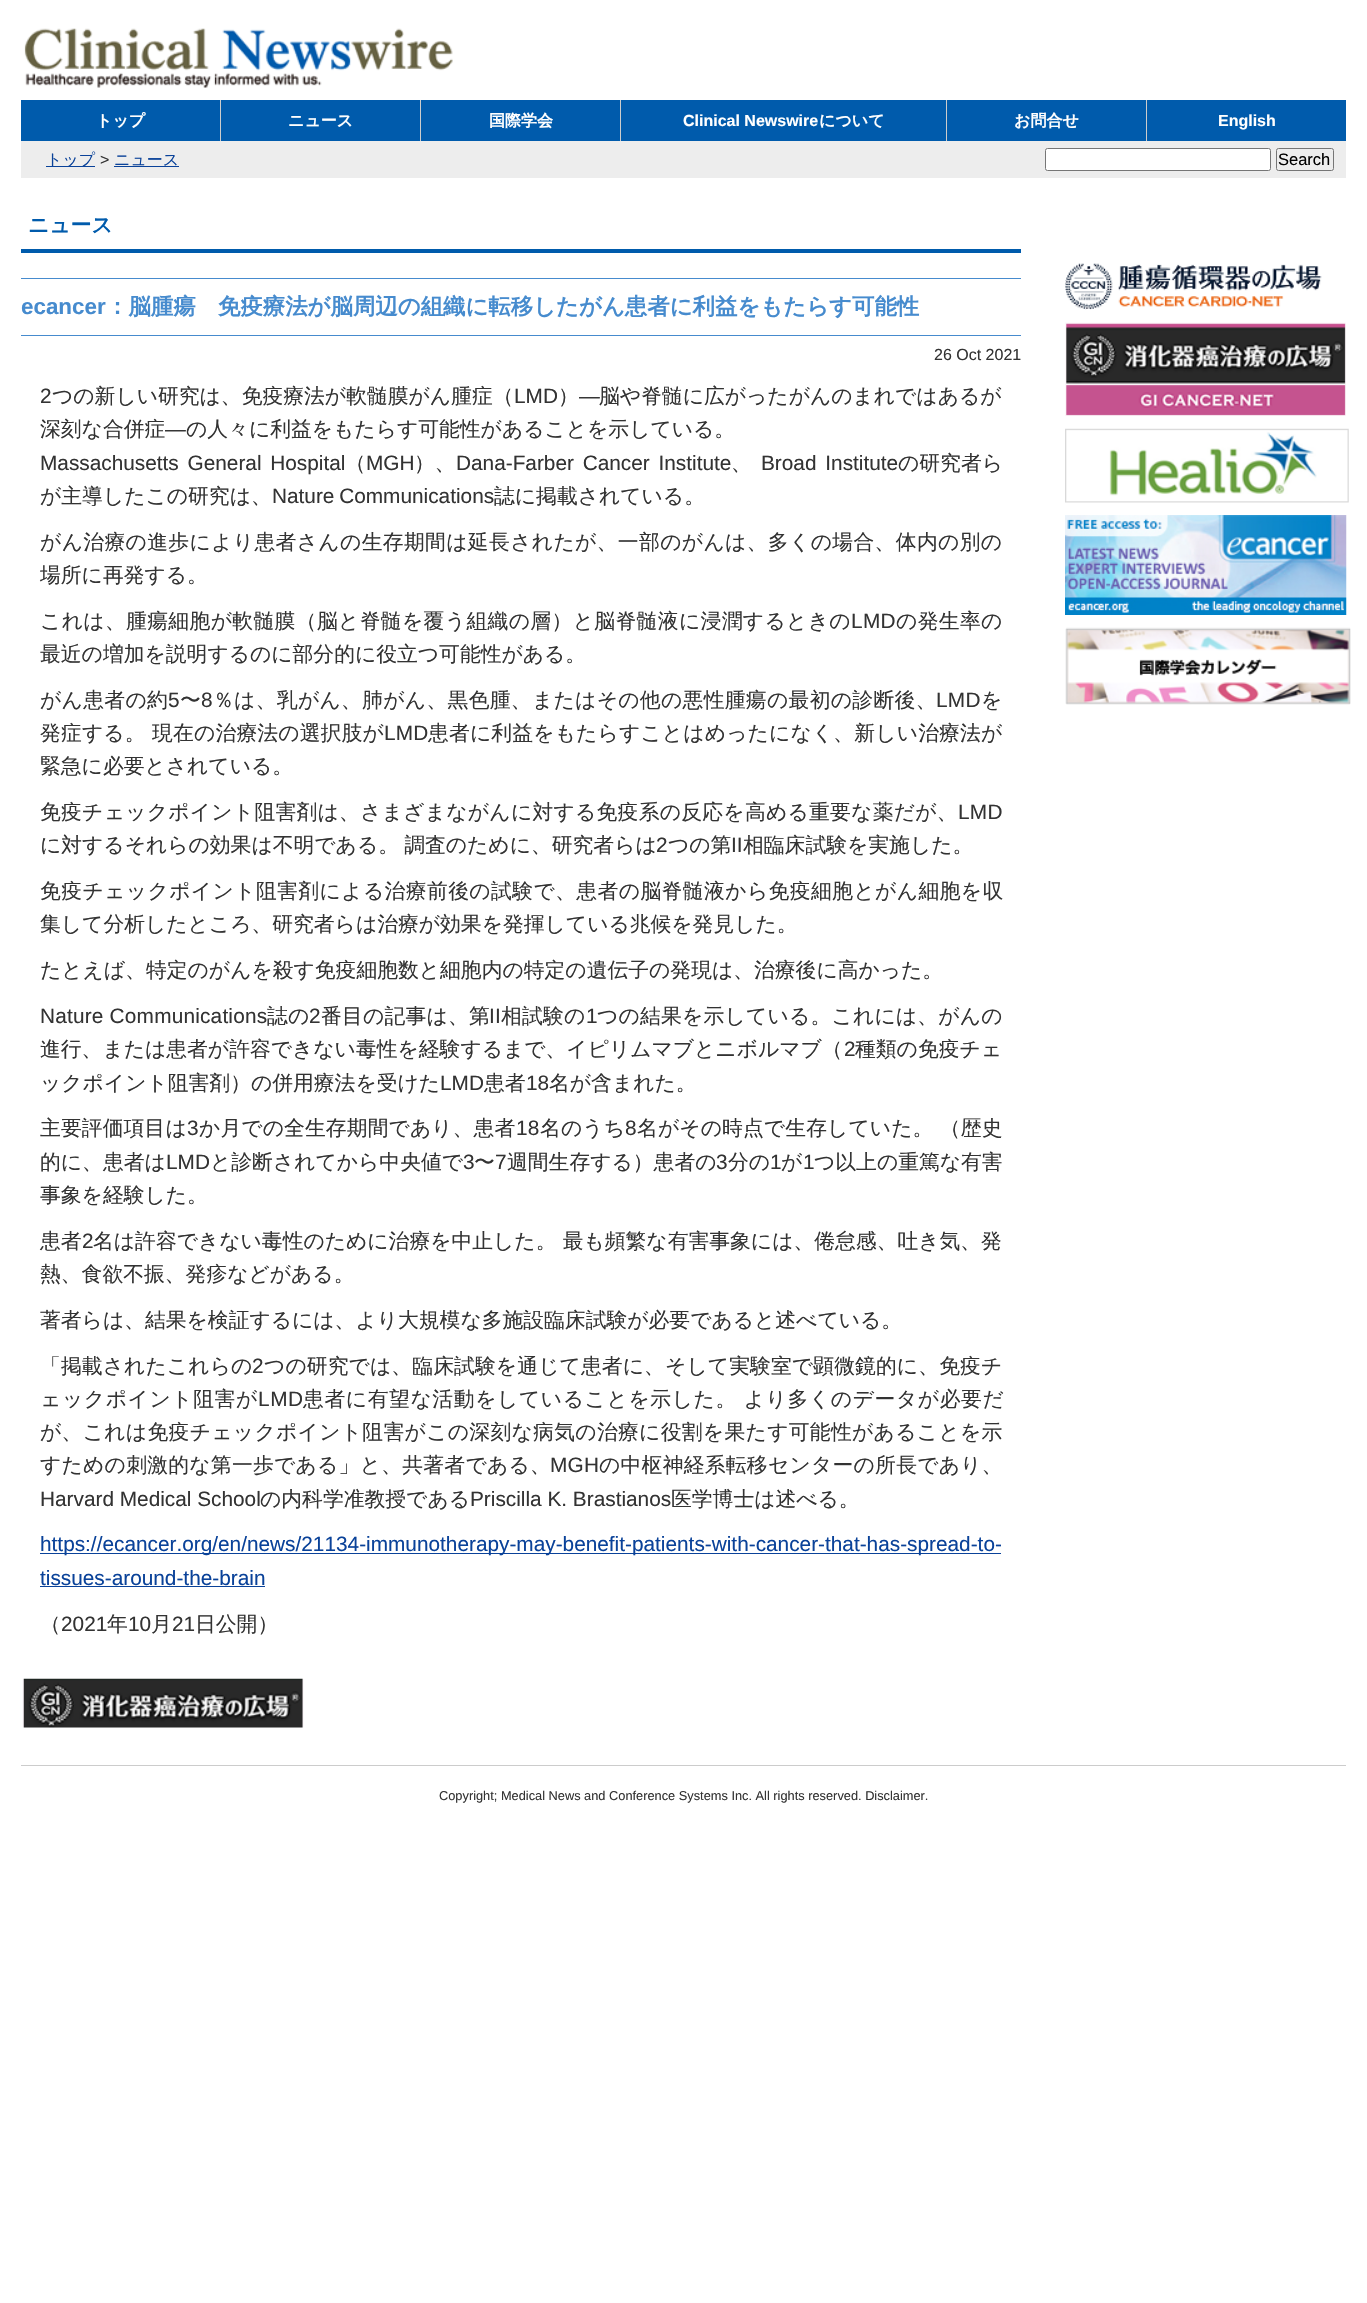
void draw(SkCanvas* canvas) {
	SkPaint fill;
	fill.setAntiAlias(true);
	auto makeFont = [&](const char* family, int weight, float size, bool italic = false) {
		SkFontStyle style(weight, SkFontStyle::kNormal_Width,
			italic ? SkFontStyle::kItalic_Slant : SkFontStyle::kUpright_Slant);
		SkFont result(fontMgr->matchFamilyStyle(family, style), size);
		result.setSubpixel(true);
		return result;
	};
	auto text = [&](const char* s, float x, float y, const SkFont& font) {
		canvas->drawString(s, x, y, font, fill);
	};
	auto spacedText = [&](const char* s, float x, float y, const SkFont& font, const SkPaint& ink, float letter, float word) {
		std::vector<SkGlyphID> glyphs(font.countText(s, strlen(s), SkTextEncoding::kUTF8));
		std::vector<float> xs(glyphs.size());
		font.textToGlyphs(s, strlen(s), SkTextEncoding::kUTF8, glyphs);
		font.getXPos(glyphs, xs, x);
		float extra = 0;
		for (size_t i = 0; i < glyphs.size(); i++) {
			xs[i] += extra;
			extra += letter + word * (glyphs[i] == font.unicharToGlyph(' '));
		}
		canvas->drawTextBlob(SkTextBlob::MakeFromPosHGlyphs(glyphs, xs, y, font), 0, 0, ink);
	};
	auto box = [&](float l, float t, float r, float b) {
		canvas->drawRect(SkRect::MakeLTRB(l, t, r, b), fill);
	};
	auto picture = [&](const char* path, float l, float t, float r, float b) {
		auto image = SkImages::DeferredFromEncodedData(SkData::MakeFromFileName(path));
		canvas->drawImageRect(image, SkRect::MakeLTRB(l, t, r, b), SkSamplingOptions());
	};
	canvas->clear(0xFFFFFFFF);
	picture("image0.png", 24, 28, 453, 88);
	fill.setColor(0xFF005BAC);
	box(21, 100, 1346, 141);
	fill.setColor(0xFFCCCCCC);
	box(220, 100, 221, 141);
	box(420, 100, 421, 141);
	box(620, 100, 621, 141);
	box(946, 100, 947, 141);
	box(1146, 100, 1147, 141);
	fill.setColor(0xFFEDEDED);
	box(21, 141, 1346, 178);
	fill.setColor(0xFF0A4299);
	box(46, 166, 95, 167);
	box(114, 166, 179, 167);
	fill.setColor(0xFFFFFFFF);
	canvas->drawRoundRect(SkRect::MakeLTRB(1045.5f, 148.5f, 1270.5f, 170.5f), 2, 2, fill);
	fill.setStyle(SkPaint::kStroke_Style);
	fill.setStrokeWidth(1);
	fill.setColor(0xFF767676);
	canvas->drawRoundRect(SkRect::MakeLTRB(1045.5f, 148.5f, 1270.5f, 170.5f), 2, 2, fill);
	canvas->drawRoundRect(SkRect::MakeLTRB(1276.5f, 148.5f, 1333.5f, 170.5f), 2, 2, fill);
	fill.setStyle(SkPaint::kFill_Style);
	fill.setColor(0xFF005BAC);
	box(21, 249, 1021, 253);
	fill.setColor(0xFF468BCE);
	box(21, 278, 1021, 279);
	box(21, 335, 1021, 336);
	fill.setColor(0xFF0A4299);
	box(40, 1553, 1001, 1554);
	box(40, 1586, 265, 1587);
	picture("image1.png", 1065, 263, 1322, 310);
	picture("image2.png", 1065, 322, 1346, 416);
	picture("image3.png", 1065, 428, 1349, 503);
	picture("image4.png", 1065, 515, 1347, 615);
	picture("image5.png", 1065, 627, 1351, 705);
	picture("image6.png", 22, 1678, 304, 1728);
	fill.setColor(0xFFCCCCCC);
	box(21, 1765, 1346, 1766);
	auto font1 = makeFont("WenQuanYi Zen Hei", 700, 16);
	fill.setColor(0xFFFFFFFF);
	text("トップ", 96, 126, font1);
	text("ニュース", 288, 126, font1);
	text("国際学会", 489, 126, font1);
	auto font2 = makeFont("Liberation Sans", 700, 16);
	text("Clinical Newswire", 683, 126, font2);
	text("について", 819, 126, font1);
	text("お問合せ", 1014, 126, font1);
	text("English", 1218, 126, font2);
	auto font3 = makeFont("WenQuanYi Zen Hei", 500, 16);
	fill.setColor(0xFF0A4299);
	text("トップ", 46, 165, font3);
	auto font4 = makeFont("Liberation Sans", 400, 16);
	fill.setColor(0xFF333333);
	text(">", 100, 165, font4);
	fill.setColor(0xFF0A4299);
	text("ニュース", 114, 165, font3);
	auto font5 = makeFont("Liberation Sans", 400, 16.5f);
	fill.setColor(0xFF000000);
	text("Search", 1278, 165, font5);
	auto font6 = makeFont("WenQuanYi Zen Hei", 700, 20.8f);
	fill.setColor(0xFF005BAC);
	text("ニュース", 28, 232, font6);
	auto font7 = makeFont("Liberation Sans", 700, 22.4f);
	fill.setColor(0xFF468BCE);
	text("ecancer", 21, 314, font7);
	auto font8 = makeFont("WenQuanYi Zen Hei", 700, 22.4f);
	text("：脳腫瘍　免疫療法が脳周辺の組織に転移したがん患者に利益をもたらす可能性", 106, 314, font8);
	fill.setColor(0xFF333333);
	text("26 Oct 2021", 934, 360, font4);
	auto font9 = makeFont("Liberation Sans", 400, 20.8f);
	text("2", 40, 403, font9);
	auto font10 = makeFont("WenQuanYi Zen Hei", 500, 20.8f);
	text("つの新しい研究は、免疫療法が軟髄膜がん腫症（", 52, 403, font10);
	text("LMD", 514, 403, font9);
	text("）", 558, 403, font10);
	text("―", 579, 403, font9);
	text("脳や脊髄に広がったがんのまれではあるが", 599, 403, font10);
	text("深刻な合併症", 40, 436, font10);
	text("―", 165, 436, font9);
	text("の人々に利益をもたらす可能性があることを示している。", 186, 436, font10);
	spacedText("Massachusetts General Hospital", 40, 470, font9, fill, 0, 3);
	text("（", 345, 470, font10);
	text("MGH", 366, 470, font9);
	text("）、", 414, 470, font10);
	spacedText("Dana-Farber Cancer Institute", 456, 470, font9, fill, 0, 3);
	text("、", 731, 470, font10);
	spacedText("Broad Institute", 761, 470, font9, fill, 0, 3);
	text("の研究者ら", 898, 470, font10);
	text("が主導したこの研究は、", 40, 503, font10);
	spacedText("Nature Communications", 272, 503, font9, fill, 0, -1);
	text("誌に掲載されている。", 494, 503, font10);
	spacedText("がん治療の進歩により患者さんの生存期間は延長されたが、一部のがんは、多くの場合、体内の別の", 40, 549, font10, fill, 0.35f, 0);
	text("場所に再発する。", 40, 582, font10);
	spacedText("これは、腫瘍細胞が軟髄膜（脳と脊髄を覆う組織の層）と脳脊髄液に浸潤するときの", 40, 628, font10, fill, 0.35f, 0);
	spacedText("LMD", 851, 628, font9, fill, 0.35f, 0);
	spacedText("の発生率の", 896, 628, font10, fill, 0.35f, 0);
	text("最近の増加を説明するのに部分的に役立つ可能性がある。", 40, 661, font10);
	spacedText("がん患者の約", 40, 707, font10, fill, 0.3f, 0);
	spacedText("5", 168, 707, font9, fill, 0.3f, 0);
	spacedText("〜", 180, 707, font10, fill, 0.3f, 0);
	spacedText("8", 201, 707, font9, fill, 0.3f, 0);
	spacedText("％は、乳がん、肺がん、黒色腫、またはその他の悪性腫瘍の最初の診断後、", 213, 707, font10, fill, 0.3f, 0);
	spacedText("LMD", 936, 707, font9, fill, 0.3f, 0);
	spacedText("を", 981, 707, font10, fill, 0.3f, 0);
	spacedText("発症する。 現在の治療法の選択肢が", 40, 740, font10, fill, 0.15f, 0);
	spacedText("LMD", 384, 740, font9, fill, 0.15f, 0);
	spacedText("患者に利益をもたらすことはめったになく、新しい治療法が", 428, 740, font10, fill, 0.15f, 0);
	text("緊急に必要とされている。", 40, 773, font10);
	spacedText("免疫チェックポイント阻害剤は、さまざまながんに対する免疫系の反応を高める重要な薬だが、", 40, 819, font10, fill, 0.25f, 0);
	spacedText("LMD", 958, 819, font9, fill, 0.25f, 0);
	spacedText("に対するそれらの効果は不明である。 調査のために、研究者らは", 40, 852, font10, fill, 0, -1);
	text("2", 656, 852, font9);
	text("つの第", 668, 852, font10);
	text("II", 731, 852, font9);
	text("相臨床試験を実施した。", 743, 852, font10);
	spacedText("免疫チェックポイント阻害剤による治療前後の試験で、患者の脳脊髄液から免疫細胞とがん細胞を収", 40, 898, font10, fill, 0.4f, 0);
	text("集して分析したところ、研究者らは治療が効果を発揮している兆候を発見した。", 40, 931, font10);
	text("たとえば、特定のがんを殺す免疫細胞数と細胞内の特定の遺伝子の発現は、治療後に高かった。", 40, 977, font10);
	spacedText("Nature Communications", 40, 1023, font9, fill, 0.2f, 0);
	spacedText("誌の", 267, 1023, font10, fill, 0.2f, 0);
	spacedText("2", 309, 1023, font9, fill, 0.2f, 0);
	spacedText("番目の記事は、第", 321, 1023, font10, fill, 0.2f, 0);
	spacedText("II", 489, 1023, font9, fill, 0.2f, 0);
	spacedText("相試験の", 501, 1023, font10, fill, 0.2f, 0);
	spacedText("1", 586, 1023, font9, fill, 0.2f, 0);
	spacedText("つの結果を示している。これには、がんの", 597, 1023, font10, fill, 0.2f, 0);
	text("進行、または患者が許容できない毒性を経験するまで、イピリムマブとニボルマブ（", 40, 1056, font10);
	text("2", 844, 1056, font9);
	text("種類の免疫チェ", 855, 1056, font10);
	text("ックポイント阻害剤）の併用療法を受けた", 40, 1090, font10);
	text("LMD", 440, 1090, font9);
	text("患者", 484, 1090, font10);
	text("18", 526, 1090, font9);
	text("名が含まれた。", 549, 1090, font10);
	spacedText("主要評価項目は", 40, 1135, font10, fill, 0.1f, 0);
	spacedText("3", 187, 1135, font9, fill, 0.1f, 0);
	spacedText("か月での全生存期間であり、患者", 199, 1135, font10, fill, 0.1f, 0);
	spacedText("18", 516, 1135, font9, fill, 0.1f, 0);
	spacedText("名のうち", 540, 1135, font10, fill, 0.1f, 0);
	spacedText("8", 625, 1135, font9, fill, 0.1f, 0);
	spacedText("名がその時点で生存していた。 （歴史", 637, 1135, font10, fill, 0.1f, 0);
	text("的に、患者は", 40, 1169, font10);
	text("LMD", 166, 1169, font9);
	text("と診断されてから中央値で", 210, 1169, font10);
	text("3", 463, 1169, font9);
	text("〜", 474, 1169, font10);
	text("7", 495, 1169, font9);
	text("週間生存する）患者の", 507, 1169, font10);
	text("3", 716, 1169, font9);
	text("分の", 728, 1169, font10);
	text("1", 770, 1169, font9);
	text("が", 781, 1169, font10);
	text("1", 803, 1169, font9);
	text("つ以上の重篤な有害", 814, 1169, font10);
	text("事象を経験した。", 40, 1202, font10);
	text("患者", 40, 1248, font10);
	text("2", 82, 1248, font9);
	text("名は許容できない毒性のために治療を中止した。 最も頻繁な有害事象には、倦怠感、吐き気、発", 93, 1248, font10);
	text("熱、食欲不振、発疹などがある。", 40, 1281, font10);
	text("著者らは、結果を検証するには、より大規模な多施設臨床試験が必要であると述べている。", 40, 1327, font10);
	spacedText("「掲載されたこれらの", 40, 1373, font10, fill, 0.1f, 0);
	spacedText("2", 252, 1373, font9, fill, 0.1f, 0);
	spacedText("つの研究では、臨床試験を通じて患者に、そして実験室で顕微鏡的に、免疫チ", 264, 1373, font10, fill, 0.1f, 0);
	spacedText("ェックポイント阻害が", 40, 1406, font10, fill, 0.6f, 0);
	spacedText("LMD", 258, 1406, font9, fill, 0.6f, 0);
	spacedText("患者に有望な活動をしていることを示した。 より多くのデータが必要だ", 303, 1406, font10, fill, 0.6f, 0);
	spacedText("が、これは免疫チェックポイント阻害がこの深刻な病気の治療に役割を果たす可能性があることを示", 40, 1439, font10, fill, 0.3f, 0);
	spacedText("すための刺激的な第一歩である」と、共著者である、", 40, 1472, font10, fill, 0.25f, 0);
	spacedText("MGH", 550, 1472, font9, fill, 0.25f, 0);
	spacedText("の中枢神経系転移センターの所長であり、", 599, 1472, font10, fill, 0.25f, 0);
	text("Harvard Medical School", 40, 1506, font9);
	text("の内科学准教授である", 260, 1506, font10);
	text("Priscilla K. Brastianos", 470, 1506, font9);
	text("医学博士は述べる。", 671, 1506, font10);
	fill.setColor(0xFF0A4299);
	text("https://ecancer.org/en/news/21134-immunotherapy-may-benefit-patients-with-cancer-that-has-spread-to-", 40, 1551, font9);
	text("tissues-around-the-brain", 40, 1585, font9);
	fill.setColor(0xFF333333);
	text("（", 40, 1631, font10);
	text("2021", 61, 1631, font9);
	text("年", 107, 1631, font10);
	text("10", 128, 1631, font9);
	text("月", 151, 1631, font10);
	text("21", 172, 1631, font9);
	text("日公開）", 195, 1631, font10);
	auto font11 = makeFont("Liberation Sans", 400, 12.8f);
	text("Copyright; Medical News and Conference Systems Inc. All rights reserved. Disclaimer.", 439, 1800, font11);
}
